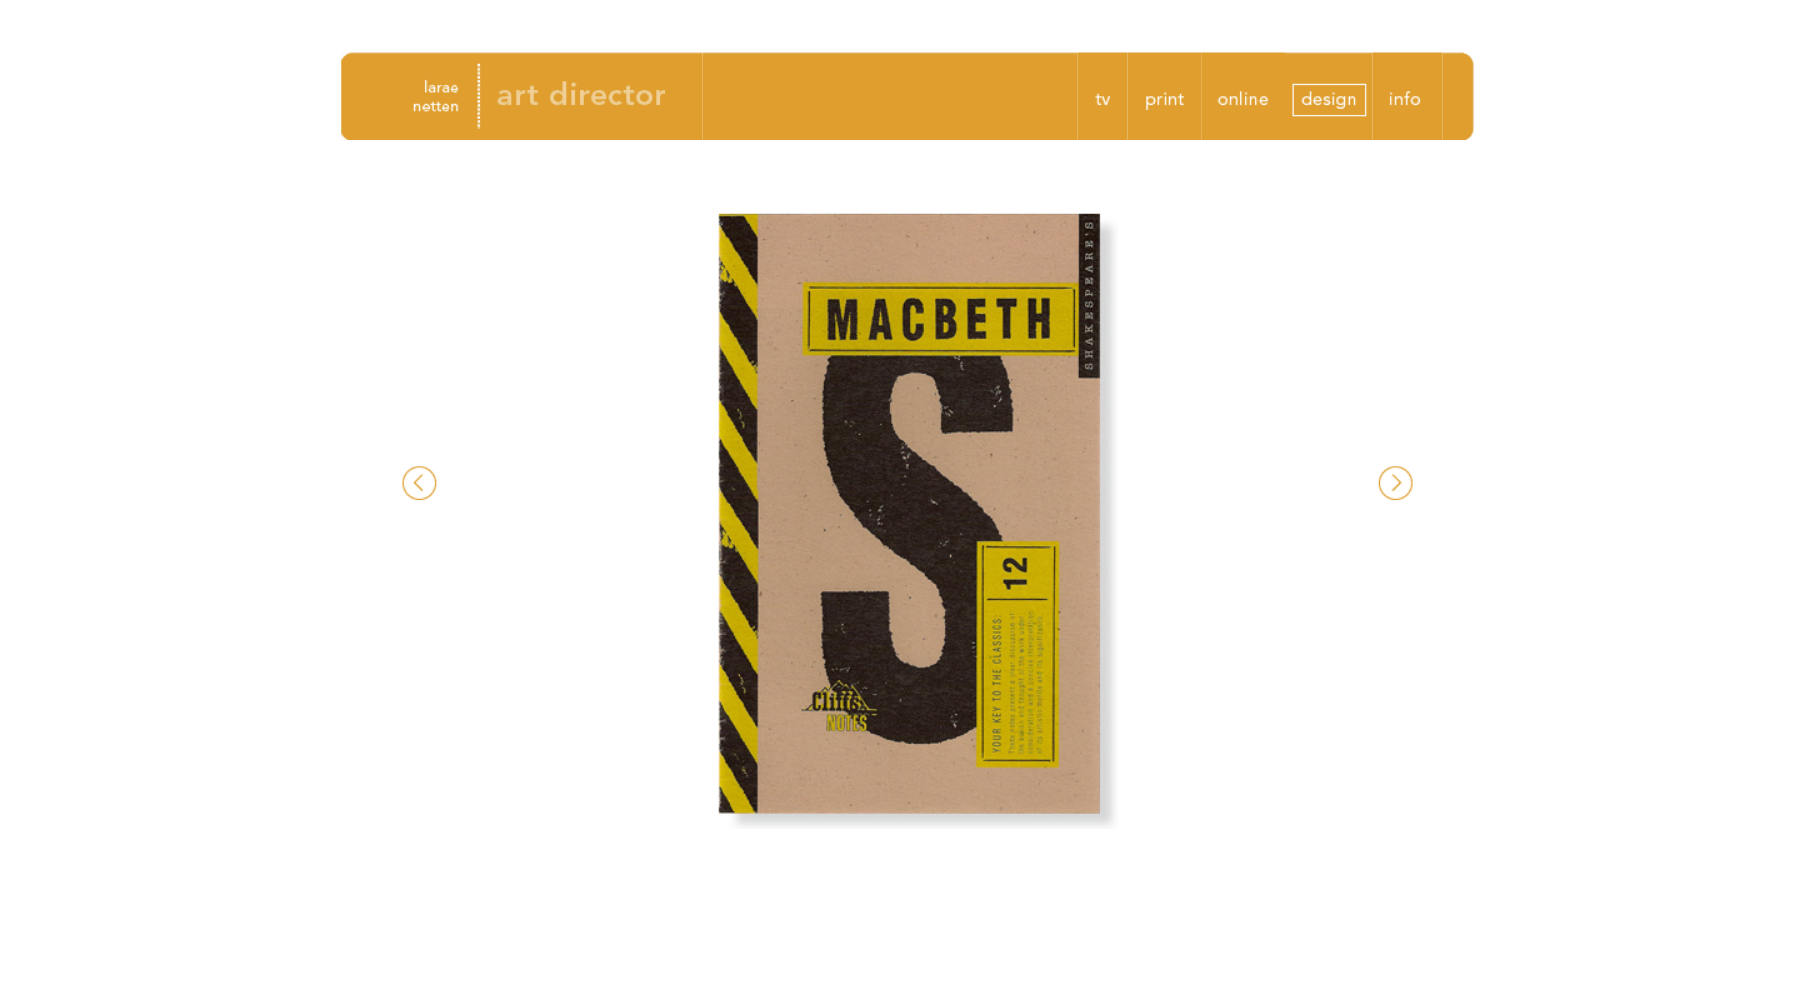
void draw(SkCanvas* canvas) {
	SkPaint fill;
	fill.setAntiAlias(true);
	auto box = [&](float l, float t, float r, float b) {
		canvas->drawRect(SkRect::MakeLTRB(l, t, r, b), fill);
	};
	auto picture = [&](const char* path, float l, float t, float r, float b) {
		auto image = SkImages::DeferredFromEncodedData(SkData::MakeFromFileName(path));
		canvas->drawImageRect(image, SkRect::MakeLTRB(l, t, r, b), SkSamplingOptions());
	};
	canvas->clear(0xFFFFFFFF);
	picture("image0.png", 341, 52, 703, 140);
	picture("image1.png", 702, 52, 1078, 140);
	picture("image2.png", 1077, 52, 1128, 140);
	picture("image3.png", 1127, 52, 1202, 140);
	picture("image4.png", 1201, 52, 1285, 140);
	picture("image5.png", 1285, 52, 1373, 140);
	picture("image6.png", 1372, 52, 1443, 140);
	picture("image7.png", 1442, 52, 1474, 140);
	fill.setColor(0x40FFFFFF);
	box(1473, 61, 1474, 133);
	picture("image8.png", 402, 466, 437, 501);
	picture("image9.png", 718, 213, 1118, 829);
	picture("image10.png", 1378, 466, 1413, 501);
}
